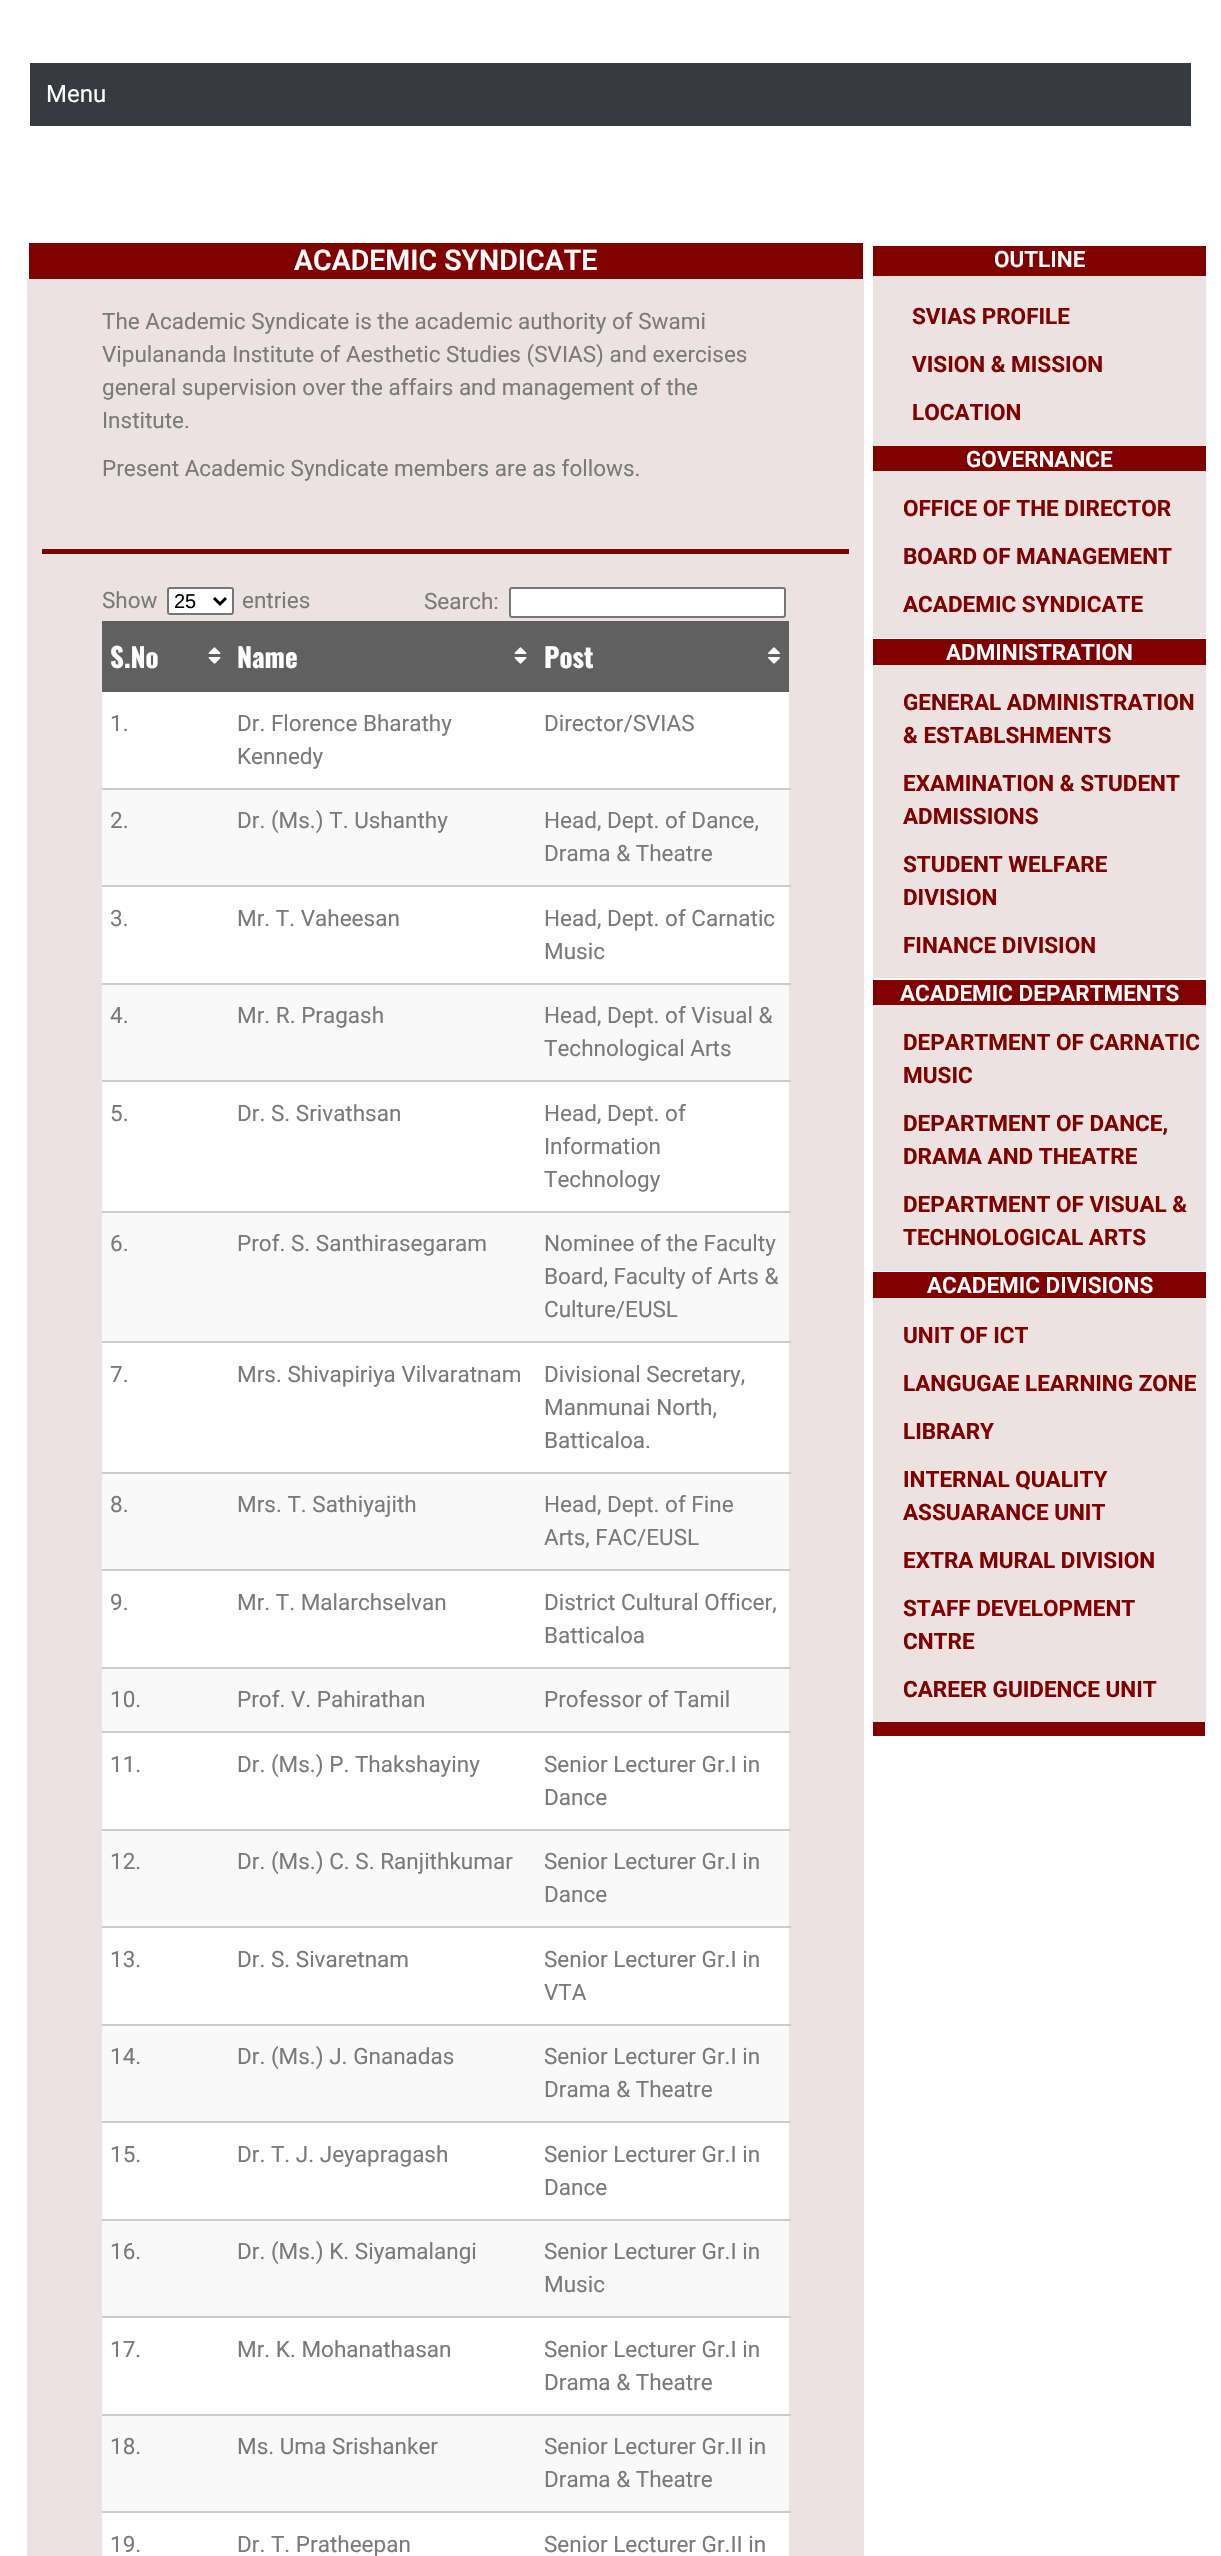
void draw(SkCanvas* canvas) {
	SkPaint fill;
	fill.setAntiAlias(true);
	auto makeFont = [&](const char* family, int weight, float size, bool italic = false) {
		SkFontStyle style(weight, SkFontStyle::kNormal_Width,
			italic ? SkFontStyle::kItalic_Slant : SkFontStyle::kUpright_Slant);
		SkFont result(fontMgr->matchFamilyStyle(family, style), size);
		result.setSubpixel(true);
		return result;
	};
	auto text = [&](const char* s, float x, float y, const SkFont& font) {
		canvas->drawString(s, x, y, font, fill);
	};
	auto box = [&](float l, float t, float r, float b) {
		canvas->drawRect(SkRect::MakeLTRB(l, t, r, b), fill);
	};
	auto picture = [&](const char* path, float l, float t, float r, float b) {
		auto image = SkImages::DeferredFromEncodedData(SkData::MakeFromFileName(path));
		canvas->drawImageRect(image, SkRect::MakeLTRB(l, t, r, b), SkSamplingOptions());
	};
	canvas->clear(0xFFFFFFFF);
	fill.setColor(0xFF373A3F);
	box(30, 63, 1191, 126);
	fill.setColor(0xFF800000);
	box(29, 243, 863, 279);
	fill.setColor(0xFFEDE2E2);
	box(27, 279, 864, 2556);
	fill.setColor(0xFF800000);
	box(42, 549, 849, 554);
	fill.setColor(0xFFFFFFFF);
	canvas->drawRoundRect(SkRect::MakeLTRB(168, 588, 233, 614), 2, 2, fill);
	fill.setStyle(SkPaint::kStroke_Style);
	fill.setStrokeWidth(2);
	fill.setColor(0xFF767676);
	canvas->drawRoundRect(SkRect::MakeLTRB(168, 588, 233, 614), 2, 2, fill);
	fill.setStrokeWidth(3);
	fill.setColor(0xFF000000);
	canvas->drawPath(SkPathBuilder().moveTo(214, 598).lineTo(220, 604).lineTo(226, 598).detach(), fill);
	fill.setStyle(SkPaint::kFill_Style);
	fill.setColor(0xFFFFFFFF);
	canvas->drawRoundRect(SkRect::MakeLTRB(510, 588, 785, 617), 2, 2, fill);
	fill.setStyle(SkPaint::kStroke_Style);
	fill.setStrokeWidth(2);
	fill.setColor(0xFF767676);
	canvas->drawRoundRect(SkRect::MakeLTRB(510, 588, 785, 617), 2, 2, fill);
	fill.setStyle(SkPaint::kFill_Style);
	fill.setColor(0xFF606060);
	box(102, 621, 789, 692);
	picture("image0.png", 208, 647, 221, 664);
	picture("image0.png", 514, 647, 527, 664);
	fill.setColor(0xFFDDDDDD);
	box(789, 690, 791, 692);
	picture("image1.png", 768, 647, 780, 664);
	fill.setColor(0xFFFFFFFF);
	box(102, 692, 789, 788);
	fill.setColor(0xFFCCCCCC);
	box(102, 788, 791, 790);
	fill.setColor(0xFFF9F9F9);
	box(102, 790, 789, 885);
	fill.setColor(0xFFCCCCCC);
	box(102, 885, 791, 887);
	fill.setColor(0xFFFFFFFF);
	box(102, 887, 789, 983);
	fill.setColor(0xFFCCCCCC);
	box(102, 983, 791, 985);
	fill.setColor(0xFFF9F9F9);
	box(102, 985, 789, 1080);
	fill.setColor(0xFFCCCCCC);
	box(102, 1080, 791, 1082);
	fill.setColor(0xFFFFFFFF);
	box(102, 1082, 789, 1211);
	fill.setColor(0xFFCCCCCC);
	box(102, 1211, 791, 1213);
	fill.setColor(0xFFF9F9F9);
	box(102, 1213, 789, 1341);
	fill.setColor(0xFFCCCCCC);
	box(102, 1341, 791, 1343);
	fill.setColor(0xFFFFFFFF);
	box(102, 1343, 789, 1472);
	fill.setColor(0xFFCCCCCC);
	box(102, 1472, 791, 1474);
	fill.setColor(0xFFF9F9F9);
	box(102, 1474, 789, 1569);
	fill.setColor(0xFFCCCCCC);
	box(102, 1569, 791, 1571);
	fill.setColor(0xFFFFFFFF);
	box(102, 1571, 789, 1667);
	fill.setColor(0xFFCCCCCC);
	box(102, 1667, 791, 1669);
	fill.setColor(0xFFF9F9F9);
	box(102, 1669, 789, 1731);
	fill.setColor(0xFFCCCCCC);
	box(102, 1731, 791, 1733);
	fill.setColor(0xFFFFFFFF);
	box(102, 1733, 789, 1829);
	fill.setColor(0xFFCCCCCC);
	box(102, 1829, 791, 1831);
	fill.setColor(0xFFF9F9F9);
	box(102, 1831, 789, 1926);
	fill.setColor(0xFFCCCCCC);
	box(102, 1926, 791, 1928);
	fill.setColor(0xFFFFFFFF);
	box(102, 1928, 789, 2024);
	fill.setColor(0xFFCCCCCC);
	box(102, 2024, 791, 2026);
	fill.setColor(0xFFF9F9F9);
	box(102, 2026, 789, 2121);
	fill.setColor(0xFFCCCCCC);
	box(102, 2121, 791, 2123);
	fill.setColor(0xFFFFFFFF);
	box(102, 2123, 789, 2219);
	fill.setColor(0xFFCCCCCC);
	box(102, 2219, 791, 2221);
	fill.setColor(0xFFF9F9F9);
	box(102, 2221, 789, 2316);
	fill.setColor(0xFFCCCCCC);
	box(102, 2316, 791, 2318);
	fill.setColor(0xFFFFFFFF);
	box(102, 2318, 789, 2414);
	fill.setColor(0xFFCCCCCC);
	box(102, 2414, 791, 2416);
	fill.setColor(0xFFF9F9F9);
	box(102, 2416, 789, 2511);
	fill.setColor(0xFFCCCCCC);
	box(102, 2511, 791, 2513);
	fill.setColor(0xFFFFFFFF);
	box(102, 2513, 789, 2556);
	fill.setColor(0xFF800000);
	box(873, 246, 1206, 276);
	fill.setColor(0xFFEDE2E2);
	box(873, 276, 1206, 446);
	fill.setColor(0xFF800000);
	box(873, 446, 1206, 471);
	fill.setColor(0xFFEDE2E2);
	box(873, 471, 1206, 638);
	fill.setColor(0xFF800000);
	box(873, 639, 1206, 665);
	fill.setColor(0xFFEDE2E2);
	box(873, 665, 1206, 978);
	fill.setColor(0xFF800000);
	box(873, 980, 1206, 1005);
	fill.setColor(0xFFEDE2E2);
	box(873, 1005, 1206, 1271);
	fill.setColor(0xFF800000);
	box(873, 1272, 1206, 1298);
	fill.setColor(0xFFEDE2E2);
	box(873, 1298, 1206, 1722);
	fill.setColor(0xFF800000);
	box(873, 1722, 1205, 1736);
	auto font1 = makeFont("Roboto", 400, 24);
	fill.setColor(0xFFFFFFFF);
	text("Menu", 46, 102, font1);
	auto font2 = makeFont("Roboto", 600, 28.5f);
	text("ACADEMIC SYNDICATE", 294, 270, font2);
	auto font3 = makeFont("Roboto", 400, 22.5f);
	fill.setColor(0xFF7A7A7A);
	text("The Academic Syndicate is the academic authority of Swami", 102, 329, font3);
	text("Vipulananda Institute of Aesthetic Studies (SVIAS) and exercises", 102, 362, font3);
	text("general supervision over the affairs and management of the", 102, 395, font3);
	text("Institute.", 102, 428, font3);
	text("Present Academic Syndicate members are as follows.", 102, 476, font3);
	text("Show", 102, 608, font3);
	auto font4 = makeFont("Liberation Sans", 400, 20);
	fill.setColor(0xFF000000);
	text("25", 174, 608, font4);
	fill.setColor(0xFF7A7A7A);
	text("entries", 242, 608, font3);
	text("Search:", 424, 609, font3);
	auto font5 = makeFont("Oswald", 700, 27);
	fill.setColor(0xFFFFFFFF);
	text("S.No", 110, 668, font5);
	text("Name", 237, 668, font5);
	text("Post", 544, 668, font5);
	fill.setColor(0xFF7A7A7A);
	text("1.", 110, 731, font3);
	text("Dr. Florence Bharathy", 237, 731, font3);
	text("Kennedy", 237, 764, font3);
	text("Director/SVIAS", 544, 731, font3);
	text("2.", 110, 828, font3);
	text("Dr. (Ms.) T. Ushanthy", 237, 828, font3);
	text("Head, Dept. of Dance,", 544, 828, font3);
	text("Drama & Theatre", 544, 861, font3);
	text("3.", 110, 926, font3);
	text("Mr. T. Vaheesan", 237, 926, font3);
	text("Head, Dept. of Carnatic", 544, 926, font3);
	text("Music", 544, 959, font3);
	text("4.", 110, 1023, font3);
	text("Mr. R. Pragash", 237, 1023, font3);
	text("Head, Dept. of Visual &", 544, 1023, font3);
	text("Technological Arts", 544, 1056, font3);
	text("5.", 110, 1121, font3);
	text("Dr. S. Srivathsan", 237, 1121, font3);
	text("Head, Dept. of", 544, 1121, font3);
	text("Information", 544, 1154, font3);
	text("Technology", 544, 1187, font3);
	text("6.", 110, 1251, font3);
	text("Prof. S. Santhirasegaram", 237, 1251, font3);
	text("Nominee of the Faculty", 544, 1251, font3);
	text("Board, Faculty of Arts &", 544, 1284, font3);
	text("Culture/EUSL", 544, 1317, font3);
	text("7.", 110, 1382, font3);
	text("Mrs. Shivapiriya Vilvaratnam", 237, 1382, font3);
	text("Divisional Secretary,", 544, 1382, font3);
	text("Manmunai North,", 544, 1415, font3);
	text("Batticaloa.", 544, 1448, font3);
	text("8.", 110, 1512, font3);
	text("Mrs. T. Sathiyajith", 237, 1512, font3);
	text("Head, Dept. of Fine", 544, 1512, font3);
	text("Arts, FAC/EUSL", 544, 1545, font3);
	text("9.", 110, 1610, font3);
	text("Mr. T. Malarchselvan", 237, 1610, font3);
	text("District Cultural Officer,", 544, 1610, font3);
	text("Batticaloa", 544, 1643, font3);
	text("10.", 110, 1707, font3);
	text("Prof. V. Pahirathan", 237, 1707, font3);
	text("Professor of Tamil", 544, 1707, font3);
	text("11.", 110, 1772, font3);
	text("Dr. (Ms.) P. Thakshayiny", 237, 1772, font3);
	text("Senior Lecturer Gr.I in", 544, 1772, font3);
	text("Dance", 544, 1805, font3);
	text("12.", 110, 1869, font3);
	text("Dr. (Ms.) C. S. Ranjithkumar", 237, 1869, font3);
	text("Senior Lecturer Gr.I in", 544, 1869, font3);
	text("Dance", 544, 1902, font3);
	text("13.", 110, 1967, font3);
	text("Dr. S. Sivaretnam", 237, 1967, font3);
	text("Senior Lecturer Gr.I in", 544, 1967, font3);
	text("VTA", 544, 2000, font3);
	text("14.", 110, 2064, font3);
	text("Dr. (Ms.) J. Gnanadas", 237, 2064, font3);
	text("Senior Lecturer Gr.I in", 544, 2064, font3);
	text("Drama & Theatre", 544, 2097, font3);
	text("15.", 110, 2162, font3);
	text("Dr. T. J. Jeyapragash", 237, 2162, font3);
	text("Senior Lecturer Gr.I in", 544, 2162, font3);
	text("Dance", 544, 2195, font3);
	text("16.", 110, 2259, font3);
	text("Dr. (Ms.) K. Siyamalangi", 237, 2259, font3);
	text("Senior Lecturer Gr.I in", 544, 2259, font3);
	text("Music", 544, 2292, font3);
	text("17.", 110, 2357, font3);
	text("Mr. K. Mohanathasan", 237, 2357, font3);
	text("Senior Lecturer Gr.I in", 544, 2357, font3);
	text("Drama & Theatre", 544, 2390, font3);
	text("18.", 110, 2454, font3);
	text("Ms. Uma Srishanker", 237, 2454, font3);
	text("Senior Lecturer Gr.II in", 544, 2454, font3);
	text("Drama & Theatre", 544, 2487, font3);
	text("19.", 110, 2552, font3);
	text("Dr. T. Pratheepan", 237, 2552, font3);
	text("Senior Lecturer Gr.II in", 544, 2552, font3);
	auto font6 = makeFont("Roboto", 600, 22.5f);
	fill.setColor(0xFFFFFFFF);
	text("OUTLINE", 994, 267, font6);
	auto font7 = makeFont("Roboto", 700, 22.5f);
	fill.setColor(0xFF800000);
	text("SVIAS PROFILE", 912, 324, font7);
	text("VISION & MISSION", 912, 372, font7);
	text("LOCATION", 912, 420, font7);
	fill.setColor(0xFFFFFFFF);
	text("GOVERNANCE", 966, 467, font6);
	fill.setColor(0xFF800000);
	text("OFFICE OF THE DIRECTOR", 903, 516, font7);
	text("BOARD OF MANAGEMENT", 903, 564, font7);
	text("ACADEMIC SYNDICATE", 903, 612, font7);
	fill.setColor(0xFFFFFFFF);
	text("ADMINISTRATION", 946, 660, font6);
	fill.setColor(0xFF800000);
	text("GENERAL ADMINISTRATION", 903, 710, font7);
	text("& ESTABLSHMENTS", 903, 743, font7);
	text("EXAMINATION & STUDENT", 903, 791, font7);
	text("ADMISSIONS", 903, 824, font7);
	text("STUDENT WELFARE", 903, 872, font7);
	text("DIVISION", 903, 905, font7);
	text("FINANCE DIVISION", 903, 953, font7);
	fill.setColor(0xFFFFFFFF);
	text("ACADEMIC DEPARTMENTS", 900, 1001, font6);
	fill.setColor(0xFF800000);
	text("DEPARTMENT OF CARNATIC", 903, 1050, font7);
	text("MUSIC", 903, 1083, font7);
	text("DEPARTMENT OF DANCE,", 903, 1131, font7);
	text("DRAMA AND THEATRE", 903, 1164, font7);
	text("DEPARTMENT OF VISUAL &", 903, 1212, font7);
	text("TECHNOLOGICAL ARTS", 903, 1245, font7);
	fill.setColor(0xFFFFFFFF);
	text("ACADEMIC DIVISIONS", 927, 1293, font6);
	fill.setColor(0xFF800000);
	text("UNIT OF ICT", 903, 1343, font7);
	text("LANGUGAE LEARNING ZONE", 903, 1391, font7);
	text("LIBRARY", 903, 1439, font7);
	text("INTERNAL QUALITY", 903, 1487, font7);
	text("ASSUARANCE UNIT", 903, 1520, font7);
	text("EXTRA MURAL DIVISION", 903, 1568, font7);
	text("STAFF DEVELOPMENT", 903, 1616, font7);
	text("CNTRE", 903, 1649, font7);
	text("CAREER GUIDENCE UNIT", 903, 1697, font7);
}
